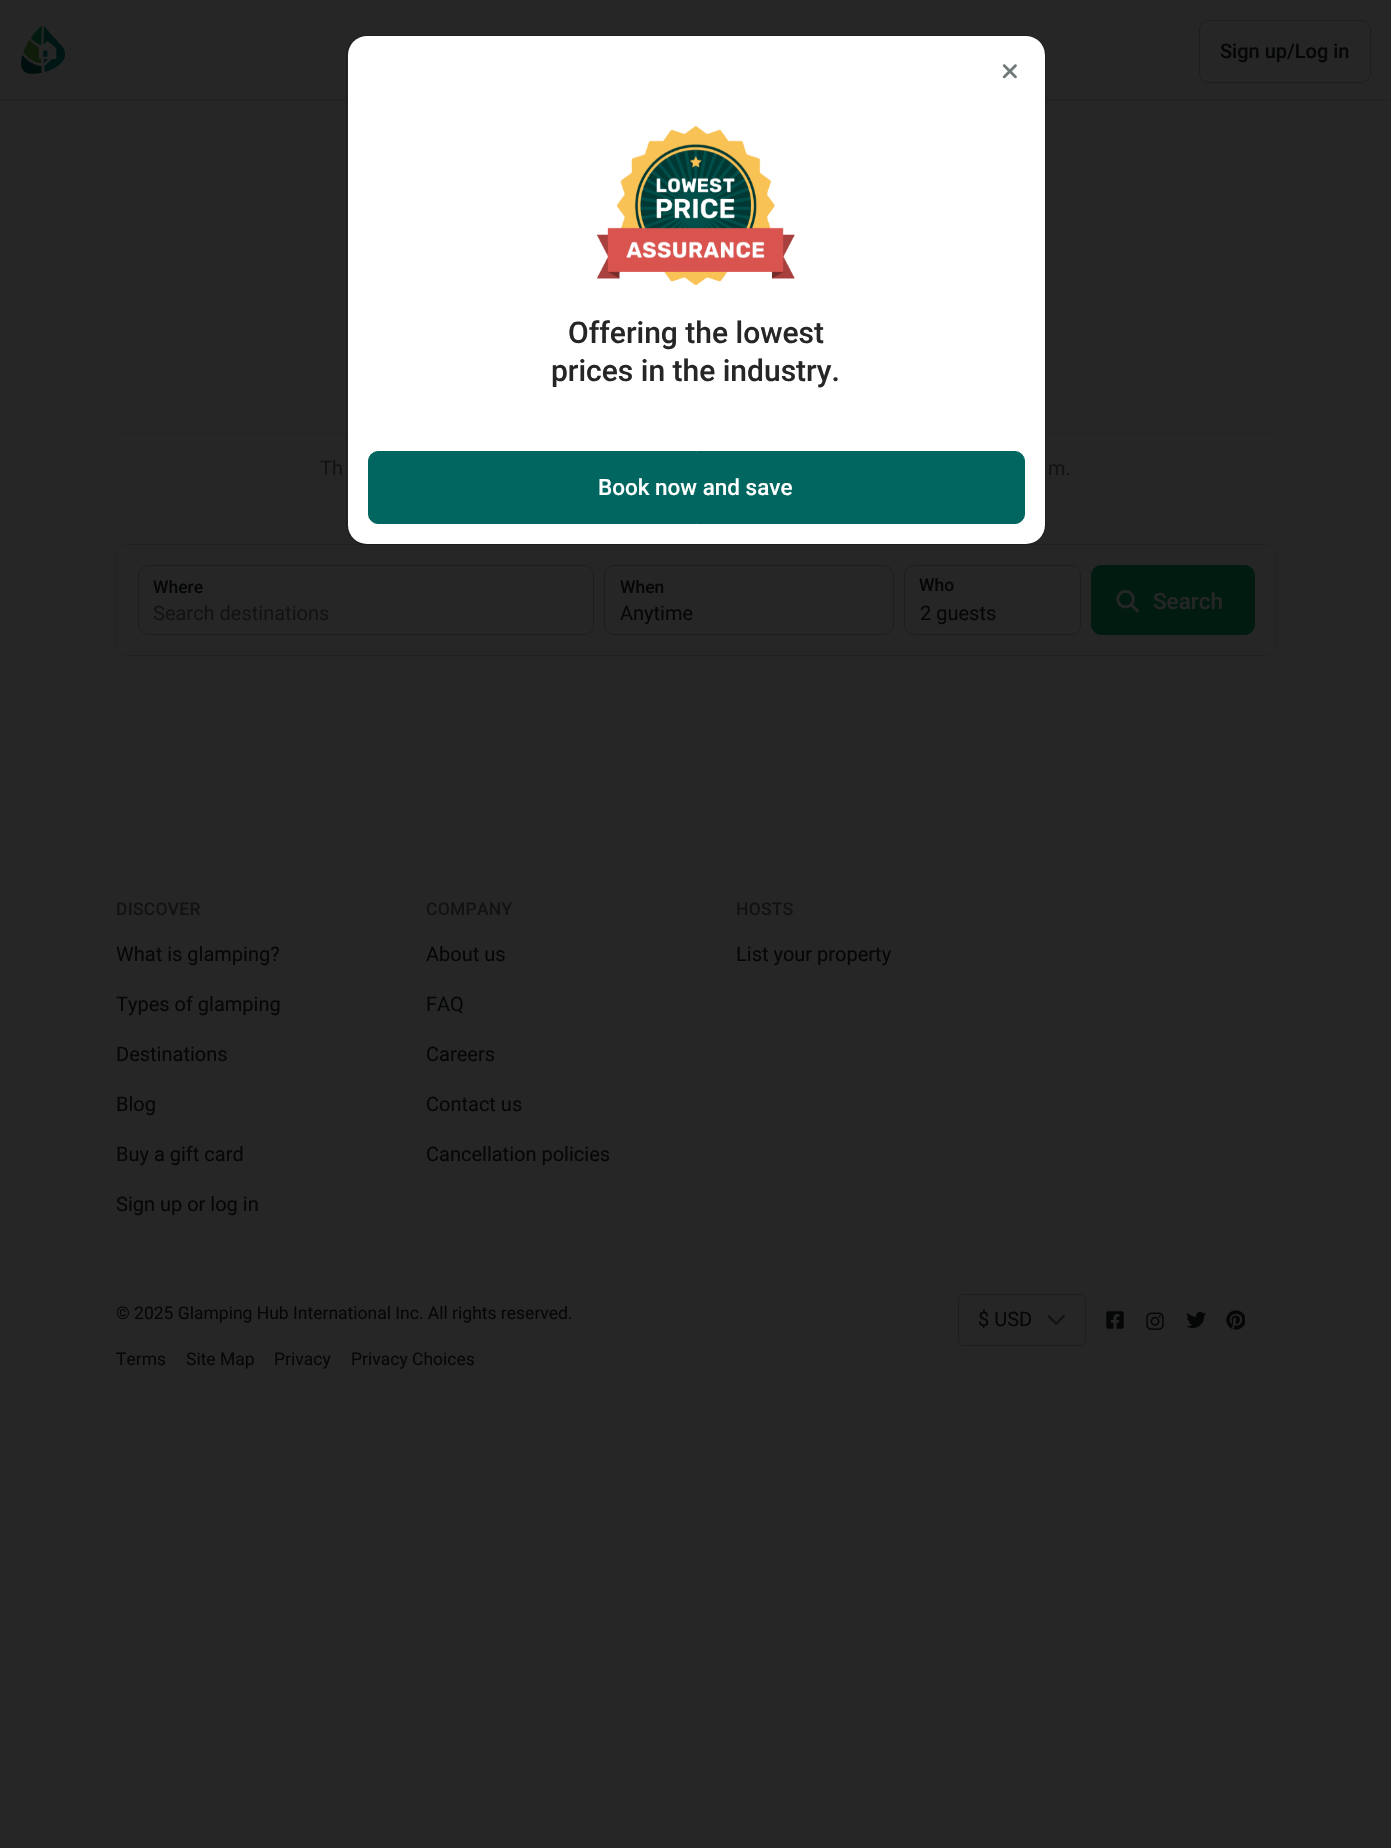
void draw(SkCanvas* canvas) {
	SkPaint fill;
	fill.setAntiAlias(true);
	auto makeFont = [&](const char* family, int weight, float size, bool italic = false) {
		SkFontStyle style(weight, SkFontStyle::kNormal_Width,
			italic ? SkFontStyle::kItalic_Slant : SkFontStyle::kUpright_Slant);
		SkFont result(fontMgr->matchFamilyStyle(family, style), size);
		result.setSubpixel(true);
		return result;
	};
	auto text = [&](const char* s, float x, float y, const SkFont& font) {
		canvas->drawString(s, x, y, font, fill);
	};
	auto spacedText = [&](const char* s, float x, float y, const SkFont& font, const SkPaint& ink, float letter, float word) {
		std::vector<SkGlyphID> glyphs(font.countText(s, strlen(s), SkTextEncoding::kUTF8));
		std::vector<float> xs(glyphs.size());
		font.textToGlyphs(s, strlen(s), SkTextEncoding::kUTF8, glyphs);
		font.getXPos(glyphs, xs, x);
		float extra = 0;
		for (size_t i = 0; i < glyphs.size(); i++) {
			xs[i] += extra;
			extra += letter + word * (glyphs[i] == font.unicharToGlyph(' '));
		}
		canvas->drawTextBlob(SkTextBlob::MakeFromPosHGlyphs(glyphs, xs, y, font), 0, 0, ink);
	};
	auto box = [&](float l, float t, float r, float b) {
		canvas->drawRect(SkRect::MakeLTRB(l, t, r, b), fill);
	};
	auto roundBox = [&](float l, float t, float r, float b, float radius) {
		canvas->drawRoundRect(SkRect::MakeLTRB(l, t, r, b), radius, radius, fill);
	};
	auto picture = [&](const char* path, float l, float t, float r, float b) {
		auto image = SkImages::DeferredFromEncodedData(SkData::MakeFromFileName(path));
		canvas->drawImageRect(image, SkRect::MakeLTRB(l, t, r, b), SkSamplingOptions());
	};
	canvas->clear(0xFF262626);
	fill.setColor(0xFF202121);
	box(0, 100, 1391, 101);
	picture("image0.png", 21, 26, 65, 74);
	fill.setStyle(SkPaint::kStroke_Style);
	fill.setStrokeWidth(1);
	fill.setColor(0xFF1C1D1D);
	canvas->drawRoundRect(SkRect::MakeLTRB(1199.5f, 20.5f, 1370.5f, 82.5f), 9.5f, 9.5f, fill);
	fill.setStyle(SkPaint::kFill_Style);
	fill.setColor(0xFF232323);
	box(116, 433, 1276, 434);
	fill.setColor(0xFFFFFFFF);
	roundBox(348, 36, 1045, 544, 19);
	fill.setStyle(SkPaint::kStroke_Style);
	fill.setColor(0xFF202121);
	canvas->drawRoundRect(SkRect::MakeLTRB(116.5f, 544.5f, 1275.5f, 655.5f), 9.5f, 9.5f, fill);
	fill.setColor(0x33000000);
	canvas->drawRoundRect(SkRect::MakeLTRB(346.5f, 35.5f, 1045.5f, 544.5f), 19.5f, 19.5f, fill);
	picture("image1.png", 1002, 64, 1017, 79);
	picture("image2.png", 596, 126, 795, 285);
	fill.setStyle(SkPaint::kFill_Style);
	fill.setColor(0xFF00665F);
	canvas->drawRoundRect(SkRect::MakeLTRB(368.5f, 451.5f, 1024.5f, 523.5f), 9.5f, 9.5f, fill);
	fill.setStyle(SkPaint::kStroke_Style);
	canvas->drawRoundRect(SkRect::MakeLTRB(368.5f, 451.5f, 1024.5f, 523.5f), 9.5f, 9.5f, fill);
	fill.setColor(0xFF1C1D1D);
	canvas->drawRoundRect(SkRect::MakeLTRB(138.5f, 565.5f, 593.5f, 634.5f), 9.5f, 9.5f, fill);
	canvas->drawRoundRect(SkRect::MakeLTRB(604.5f, 565.5f, 893.5f, 634.5f), 9.5f, 9.5f, fill);
	canvas->drawRoundRect(SkRect::MakeLTRB(904.5f, 565.5f, 1080.5f, 634.5f), 9.5f, 9.5f, fill);
	fill.setStyle(SkPaint::kFill_Style);
	fill.setColor(0xFF021B10);
	canvas->drawRoundRect(SkRect::MakeLTRB(1091.5f, 565.5f, 1254.5f, 634.5f), 9.5f, 9.5f, fill);
	fill.setStyle(SkPaint::kStroke_Style);
	canvas->drawRoundRect(SkRect::MakeLTRB(1091.5f, 565.5f, 1254.5f, 634.5f), 9.5f, 9.5f, fill);
	picture("image3.png", 1116, 590, 1139, 613);
	picture("image4.png", 1048, 1315, 1065, 1325);
	fill.setColor(0xFF1C1D1D);
	canvas->drawRoundRect(SkRect::MakeLTRB(958.5f, 1294.5f, 1085.5f, 1345.5f), 4.5f, 4.5f, fill);
	picture("image5.png", 1106, 1311, 1124, 1329);
	picture("image6.png", 1146, 1312, 1164, 1330);
	picture("image7.png", 1186, 1311, 1206, 1329);
	picture("image8.png", 1226, 1310, 1245, 1330);
	auto font1 = makeFont("Roboto", 500, 20);
	fill.setStyle(SkPaint::kFill_Style);
	fill.setColor(0xFF050606);
	text("Sign up/Log in", 1220, 58, font1);
	auto font2 = makeFont("Roboto", 500, 30);
	fill.setColor(0xFF262626);
	text("Offering the lowest", 568, 343, font2);
	text("prices in the industry.", 551, 381, font2);
	auto font3 = makeFont("Roboto", 500, 22.5f);
	fill.setColor(0xFFFFFFFF);
	text("Book now and save", 598, 495, font3);
	auto font4 = makeFont("Roboto", 400, 20);
	fill.setColor(0xFF111212);
	text("Th", 320, 475, font4);
	text("m.", 1048, 475, font4);
	auto font5 = makeFont("Roboto", 500, 17.5f);
	fill.setColor(0xFF050606);
	text("Where", 153, 593, font5);
	fill.setColor(0xFF111212);
	text("Search destinations", 153, 620, font4);
	fill.setColor(0xFF050606);
	text("When", 620, 593, font5);
	text("Anytime", 620, 620, font4);
	text("Who", 919, 591, font5);
	text("2 guests", 920, 620, font4);
	fill.setColor(0xFF262626);
	text("Search", 1153, 609, font3);
	fill.setColor(0xFF111212);
	spacedText("DISCOVER", 116, 915, font5, fill, 0.25f, 0);
	fill.setColor(0xFF050606);
	text("What is glamping?", 116, 961, font4);
	text("Types of glamping", 116, 1011, font4);
	text("Destinations", 116, 1061, font4);
	text("Blog", 116, 1111, font4);
	text("Buy a gift card", 116, 1161, font4);
	text("Sign up or log in", 116, 1211, font4);
	fill.setColor(0xFF111212);
	spacedText("COMPANY", 426, 915, font5, fill, 0.25f, 0);
	fill.setColor(0xFF050606);
	text("About us", 426, 961, font4);
	text("FAQ", 426, 1011, font4);
	text("Careers", 426, 1061, font4);
	text("Contact us", 426, 1111, font4);
	text("Cancellation policies", 426, 1161, font4);
	fill.setColor(0xFF111212);
	spacedText("HOSTS", 736, 915, font5, fill, 0.25f, 0);
	fill.setColor(0xFF050606);
	text("List your property", 736, 961, font4);
	auto font6 = makeFont("Roboto", 400, 17.5f);
	text("© 2025 Glamping Hub International Inc. All rights reserved.", 116, 1319, font6);
	text("Terms", 116, 1365, font6);
	text("Site Map", 186, 1365, font6);
	text("Privacy", 274, 1365, font6);
	text("Privacy Choices", 351, 1365, font6);
	text("$ USD", 978, 1326, font4);
}
